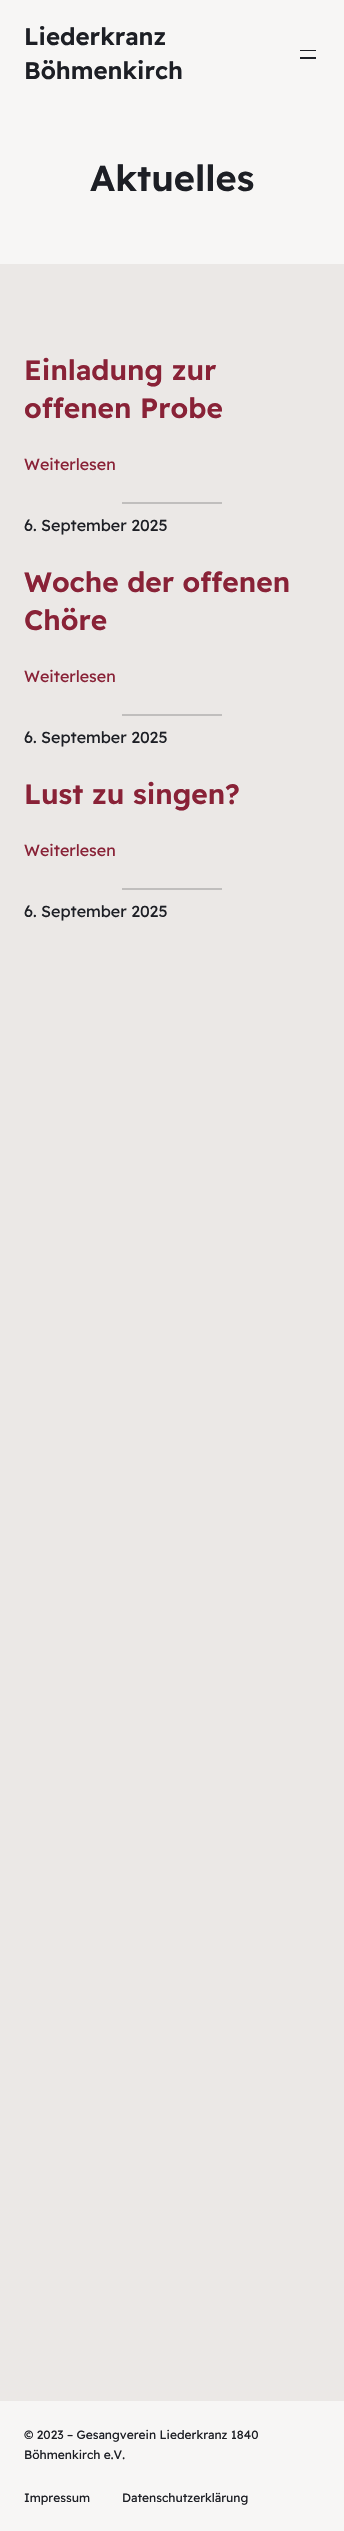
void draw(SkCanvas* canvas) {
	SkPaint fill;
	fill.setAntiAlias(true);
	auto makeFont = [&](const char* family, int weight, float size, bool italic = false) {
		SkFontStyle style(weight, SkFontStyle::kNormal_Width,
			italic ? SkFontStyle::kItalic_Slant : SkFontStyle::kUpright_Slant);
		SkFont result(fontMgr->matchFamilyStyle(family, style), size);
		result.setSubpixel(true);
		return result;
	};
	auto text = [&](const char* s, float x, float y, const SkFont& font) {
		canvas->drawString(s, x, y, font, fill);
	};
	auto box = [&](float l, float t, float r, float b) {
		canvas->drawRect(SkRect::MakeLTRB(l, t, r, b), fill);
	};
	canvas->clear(0xFFEBE8E6);
	fill.setColor(0xFFF7F6F5);
	box(0, 0, 344, 264);
	fill.setColor(0xFF1D1F25);
	box(300, 50, 316, 51);
	box(300, 57, 316, 59);
	fill.setColor(0xFFC0BEBD);
	box(122, 502, 222, 504);
	box(122, 714, 222, 716);
	box(122, 888, 222, 890);
	fill.setColor(0xFFF7F6F5);
	box(0, 2401, 344, 2531);
	auto font1 = makeFont("Readex Pro", 600, 24);
	fill.setColor(0xFF1D1F25);
	text("Liederkranz", 24, 45, font1);
	text("Böhmenkirch", 24, 79, font1);
	auto font2 = makeFont("Readex Pro", 600, 36);
	text("Aktuelles", 90, 191, font2);
	auto font3 = makeFont("Readex Pro", 600, 28);
	fill.setColor(0xFF892237);
	text("Einladung zur", 24, 380, font3);
	text("offenen Probe", 24, 418, font3);
	auto font4 = makeFont("Readex Pro", 400, 16);
	text("Weiterlesen", 24, 470, font4);
	fill.setColor(0xFF1D1F25);
	text("6. September 2025", 24, 531, font4);
	fill.setColor(0xFF892237);
	text("Woche der offenen", 24, 592, font3);
	text("Chöre", 24, 630, font3);
	text("Weiterlesen", 24, 682, font4);
	fill.setColor(0xFF1D1F25);
	text("6. September 2025", 24, 743, font4);
	fill.setColor(0xFF892237);
	text("Lust zu singen?", 24, 804, font3);
	text("Weiterlesen", 24, 856, font4);
	fill.setColor(0xFF1D1F25);
	text("6. September 2025", 24, 917, font4);
	auto font5 = makeFont("Readex Pro", 400, 12);
	text("© 2023 – Gesangverein Liederkranz 1840", 24, 2439, font5);
	text("Böhmenkirch e.V.", 24, 2459, font5);
	text("Impressum", 24, 2502, font5);
	text("Datenschutzerklärung", 122, 2502, font5);
}
